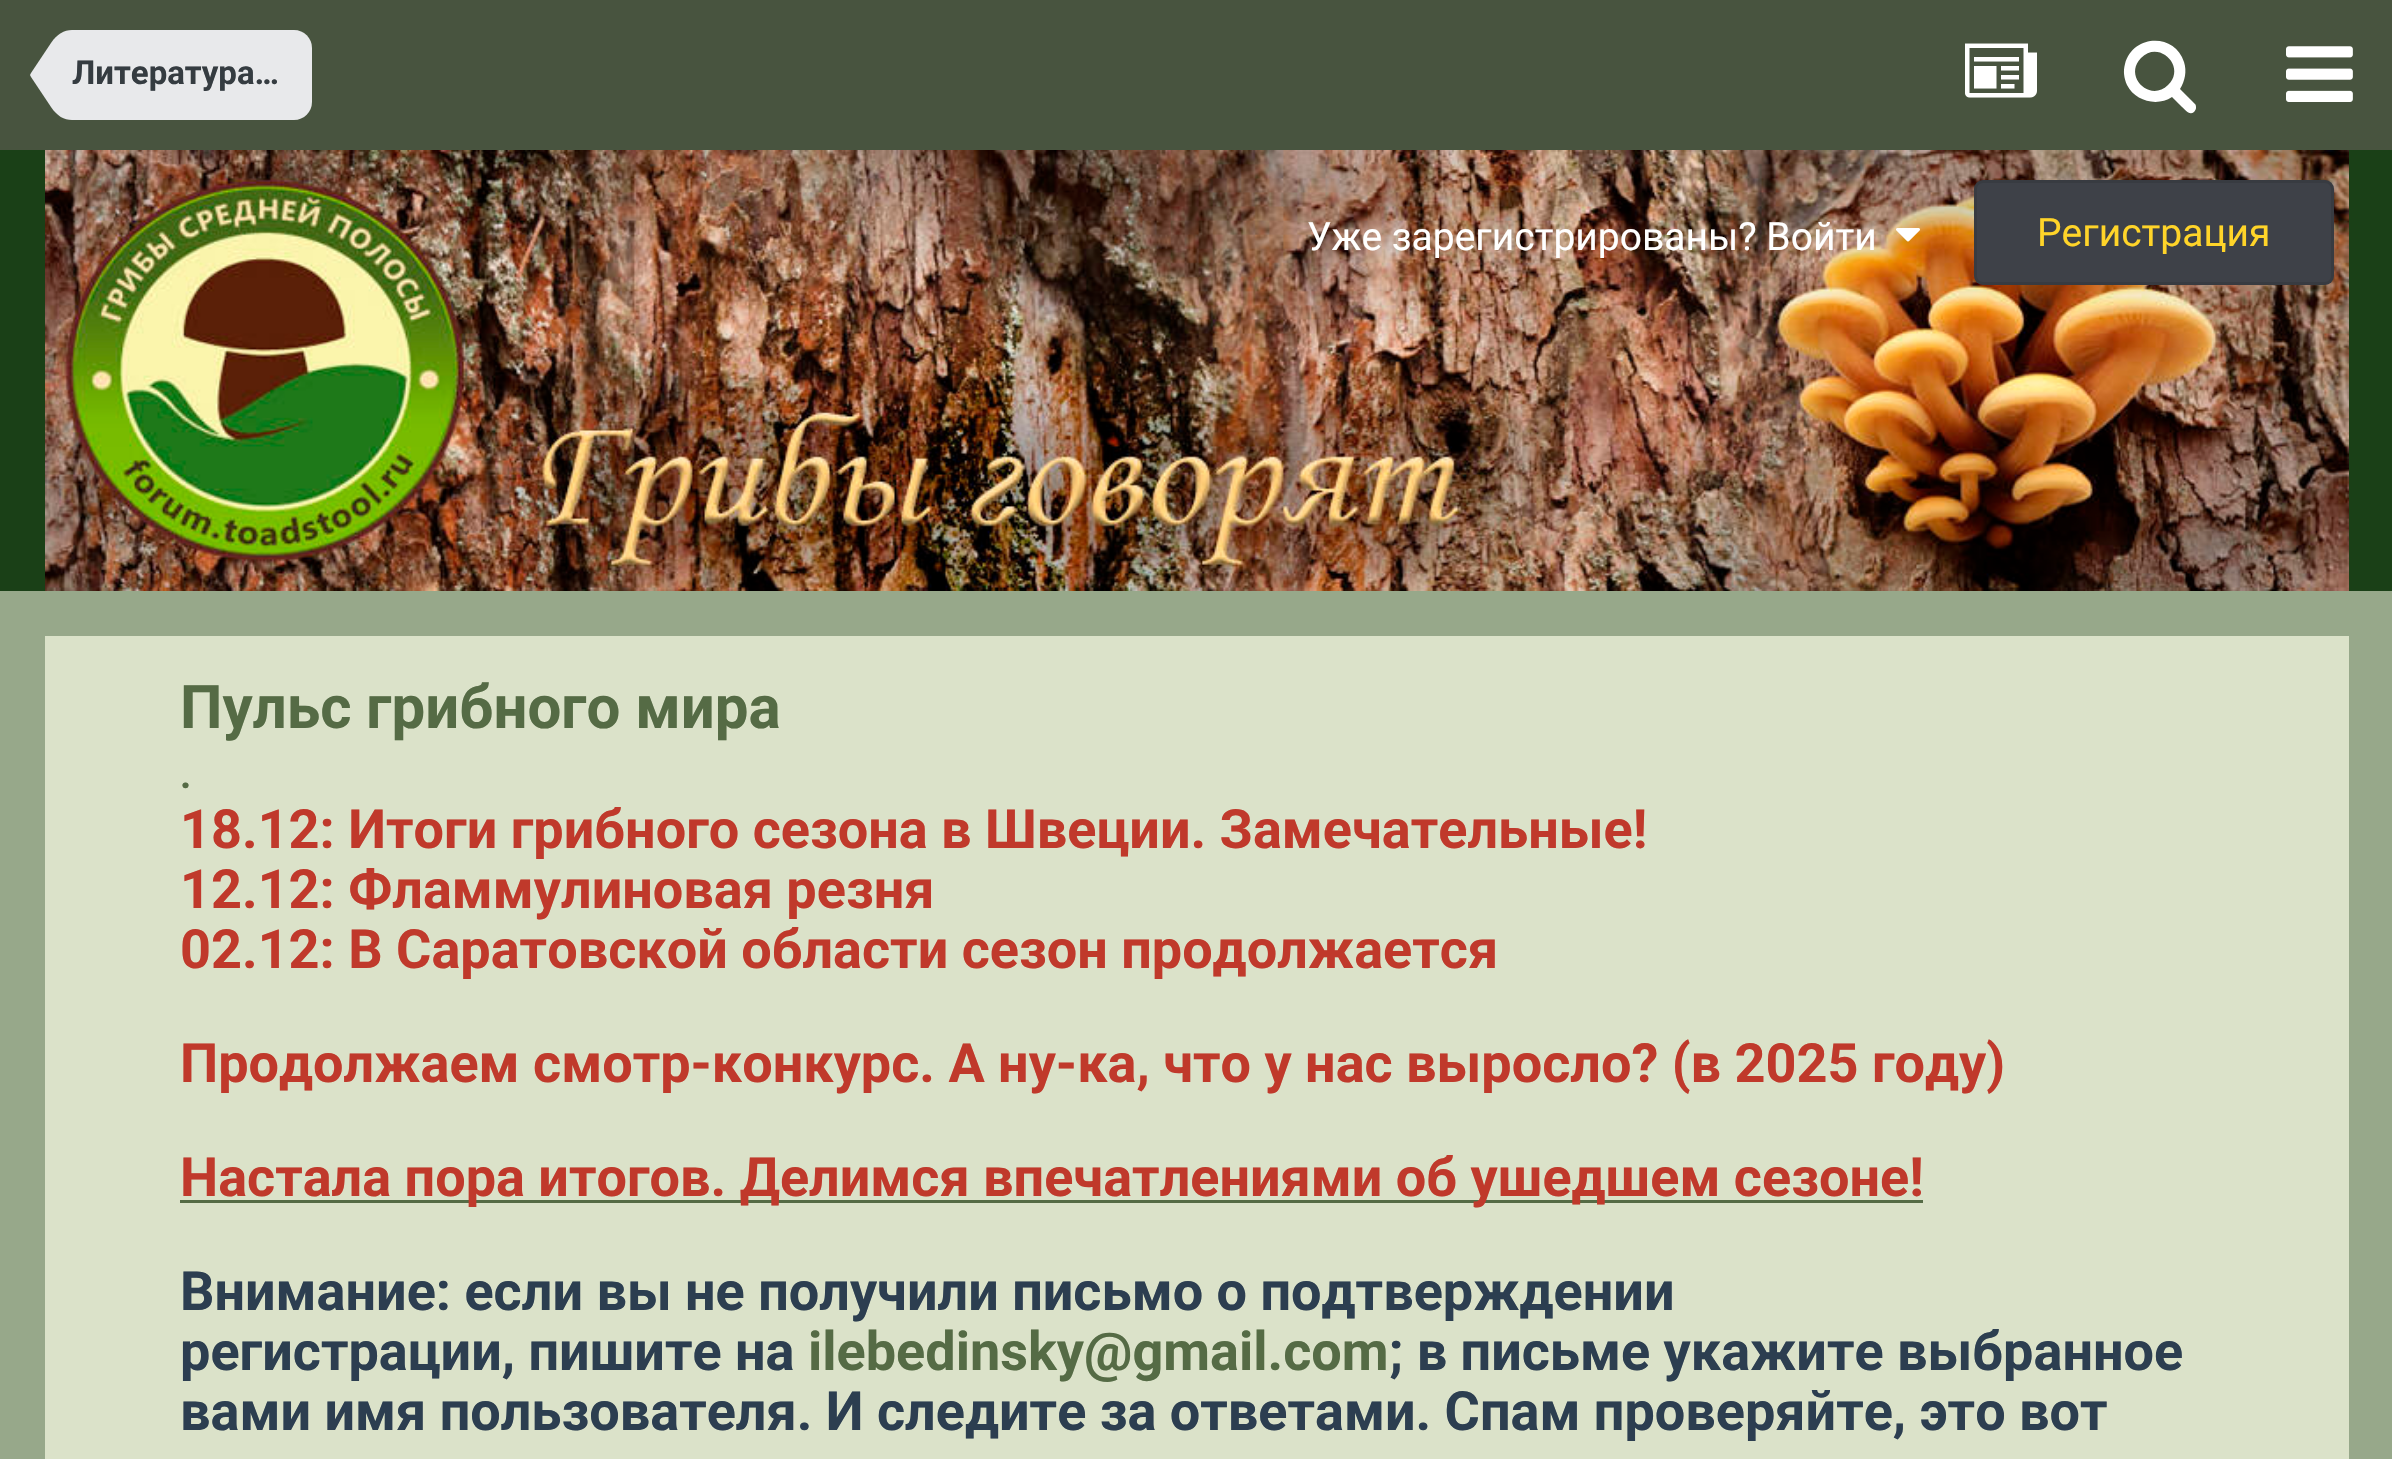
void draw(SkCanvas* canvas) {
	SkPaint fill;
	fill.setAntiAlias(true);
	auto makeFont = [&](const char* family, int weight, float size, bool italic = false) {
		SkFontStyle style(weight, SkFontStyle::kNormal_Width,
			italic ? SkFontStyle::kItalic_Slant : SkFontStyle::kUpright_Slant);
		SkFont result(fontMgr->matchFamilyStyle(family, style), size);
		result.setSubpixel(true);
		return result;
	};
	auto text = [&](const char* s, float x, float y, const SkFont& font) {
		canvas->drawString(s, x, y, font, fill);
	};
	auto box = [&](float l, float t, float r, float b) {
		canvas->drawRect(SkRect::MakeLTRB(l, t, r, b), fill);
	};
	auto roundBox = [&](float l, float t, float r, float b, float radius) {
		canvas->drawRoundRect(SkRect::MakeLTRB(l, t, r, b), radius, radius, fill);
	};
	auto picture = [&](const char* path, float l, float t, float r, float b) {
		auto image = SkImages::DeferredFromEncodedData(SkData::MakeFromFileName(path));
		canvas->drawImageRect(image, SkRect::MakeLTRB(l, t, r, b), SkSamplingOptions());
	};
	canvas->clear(0xFF1A4017);
	fill.setColor(0xFF48543F);
	box(0, 0, 2392, 150);
	fill.setColor(0xFFE8E9EB);
	canvas->drawPath(SkPathBuilder().moveTo(72, 30).lineTo(294, 30).cubicTo(304, 30, 312, 38, 312, 48).lineTo(312, 102).cubicTo(312, 112, 304, 120, 294, 120).lineTo(72, 120).close().detach(), fill);
	canvas->drawPath(SkPathBuilder().moveTo(72, 75).lineTo(72, 120).cubicTo(64, 120, 57, 116, 51, 107).lineTo(31, 77).lineTo(30, 75).close().detach(), fill);
	canvas->drawPath(SkPathBuilder().moveTo(72, 75).lineTo(30, 75).lineTo(31, 73).lineTo(51, 43).cubicTo(57, 34, 64, 30, 72, 30).close().detach(), fill);
	picture("image0.png", 1965, 43, 2037, 98);
	fill.setColor(0xFFFFFFFF);
	canvas->drawPath(SkPathBuilder().moveTo(2168, 85).cubicTo(2187, 67, 2159, 39, 2141, 58).cubicTo(2123, 76, 2150, 103, 2168, 85).close().moveTo(2196, 108).cubicTo(2196, 109, 2195, 111, 2194, 112).cubicTo(2189, 116, 2185, 109, 2182, 107).lineTo(2172, 97).cubicTo(2157, 107, 2135, 101, 2127, 85).cubicTo(2124, 78, 2123, 71, 2125, 64).cubicTo(2133, 34, 2175, 33, 2184, 62).cubicTo(2187, 71, 2185, 81, 2180, 89).lineTo(2195, 104).cubicTo(2196, 105, 2196, 106, 2196, 108).close().detach(), fill);
	picture("image1.png", 2286, 46, 2353, 102);
	picture("image2.png", 45, 150, 2349, 591);
	picture("image3.png", 1896, 228, 1920, 242);
	fill.setColor(0xFF3E4148);
	roundBox(1974, 180, 2334, 285, 9);
	fill.setStyle(SkPaint::kStroke_Style);
	fill.setStrokeWidth(3);
	fill.setColor(0x1A000000);
	canvas->drawRoundRect(SkRect::MakeLTRB(1975.5f, 181.5f, 2332.5f, 283.5f), 7.5f, 7.5f, fill);
	fill.setStyle(SkPaint::kFill_Style);
	fill.setColor(0xFF97A88A);
	box(0, 591, 2392, 1459);
	fill.setColor(0xFFDBE2C9);
	box(45, 636, 2349, 1459);
	fill.setColor(0xFF556B45);
	box(180, 1200, 1923, 1203);
	auto font1 = makeFont("Roboto", 700, 33);
	fill.setColor(0xFF353C41);
	text("Литература…", 72, 84, font1);
	auto font2 = makeFont("Roboto", 400, 39);
	fill.setColor(0xFFFFFFFF);
	text("Уже зарегистрированы? Войти", 1307, 250, font2);
	fill.setColor(0xFFFFD429);
	text("Регистрация", 2037, 246, font2);
	auto font3 = makeFont("Roboto", 700, 60);
	fill.setColor(0xFF556B45);
	text("Пульс грибного мира", 180, 728, font3);
	auto font4 = makeFont("Roboto", 700, 39);
	text(".", 180, 788, font4);
	auto font5 = makeFont("Roboto", 700, 54);
	fill.setColor(0xFFC0392B);
	text("18.12: Итоги грибного сезона в Швеции. Замечательные!", 180, 848, font5);
	text("12.12: Фламмулиновая резня", 180, 908, font5);
	text("02.12: В Саратовской области сезон продолжается", 180, 968, font5);
	text("Продолжаем смотр-конкурс. А ну-ка, что у нас выросло? (в 2025 году)", 180, 1082, font5);
	text("Настала пора итогов. Делимся впечатлениями об ушедшем сезоне!", 180, 1196, font5);
	fill.setColor(0xFF2C3E50);
	text("Внимание: если вы не получили письмо о подтверждении", 180, 1310, font5);
	text("регистрации, пишите на", 180, 1370, font5);
	fill.setColor(0xFF556B45);
	text("ilebedinsky@gmail.com", 808, 1370, font5);
	fill.setColor(0xFF2C3E50);
	text("; в письме укажите выбранное", 1389, 1370, font5);
	text("вами имя пользователя. И следите за ответами. Спам проверяйте, это вот", 180, 1430, font5);
}
